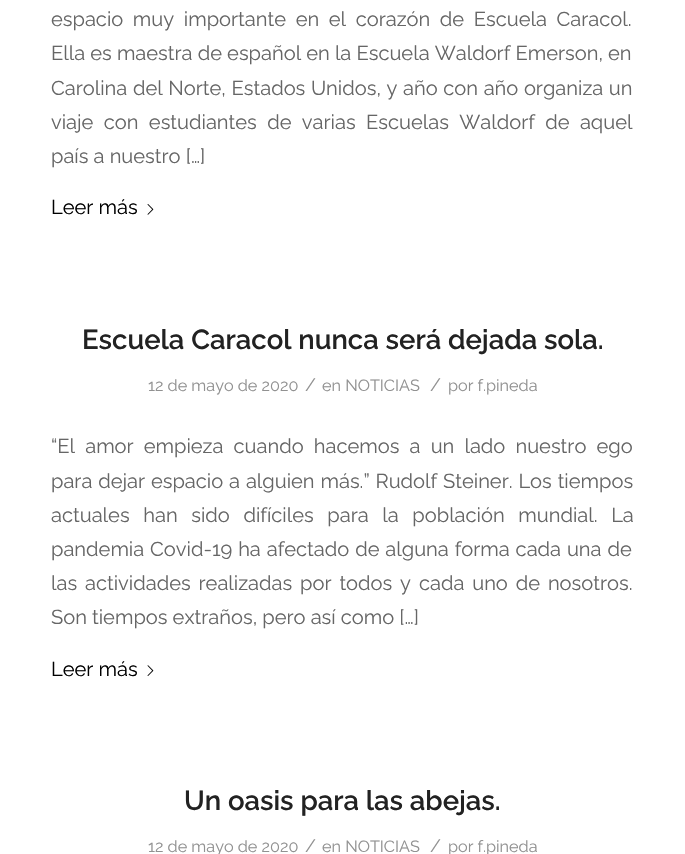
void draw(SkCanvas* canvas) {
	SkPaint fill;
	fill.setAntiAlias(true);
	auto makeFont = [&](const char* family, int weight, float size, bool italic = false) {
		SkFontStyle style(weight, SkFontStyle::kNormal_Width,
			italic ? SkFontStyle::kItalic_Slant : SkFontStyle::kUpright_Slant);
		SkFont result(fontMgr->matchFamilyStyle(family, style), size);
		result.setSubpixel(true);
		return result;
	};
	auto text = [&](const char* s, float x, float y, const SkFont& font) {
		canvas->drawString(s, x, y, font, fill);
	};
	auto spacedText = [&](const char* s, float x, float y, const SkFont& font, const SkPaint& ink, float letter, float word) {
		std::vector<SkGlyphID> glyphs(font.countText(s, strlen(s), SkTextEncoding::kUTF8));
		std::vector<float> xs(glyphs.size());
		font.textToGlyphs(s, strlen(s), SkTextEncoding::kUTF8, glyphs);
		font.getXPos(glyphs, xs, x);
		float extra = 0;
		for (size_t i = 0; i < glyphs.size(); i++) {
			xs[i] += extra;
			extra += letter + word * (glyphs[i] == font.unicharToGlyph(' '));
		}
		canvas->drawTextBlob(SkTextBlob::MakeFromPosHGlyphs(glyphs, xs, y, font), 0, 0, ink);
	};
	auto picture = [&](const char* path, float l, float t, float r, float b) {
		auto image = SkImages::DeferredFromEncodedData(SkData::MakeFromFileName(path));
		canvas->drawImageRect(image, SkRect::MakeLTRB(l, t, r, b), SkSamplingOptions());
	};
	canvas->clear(0xFFFFFFFF);
	picture("image0.png", 147, 204, 154, 215);
	picture("image1.png", 147, 665, 154, 676);
	auto font1 = makeFont("Raleway", 400, 20.1f);
	fill.setColor(0xFF666666);
	spacedText("espacio muy importante en el corazón de Escuela Caracol.", 51, 26, font1, fill, 0, 4.5f);
	text("Ella es maestra de español en la Escuela Waldorf Emerson, en", 51, 60, font1);
	spacedText("Carolina del Norte, Estados Unidos, y año con año organiza un", 51, 95, font1, fill, 0, 0.5f);
	spacedText("viaje con estudiantes de varias Escuelas Waldorf de aquel", 51, 129, font1, fill, 0, 5.25f);
	text("país a nuestro […]", 51, 163, font1);
	fill.setColor(0xFF000000);
	text("Leer más", 51, 214, font1);
	auto font2 = makeFont("Raleway", 600, 27.5f);
	fill.setColor(0xFF222222);
	text("Escuela Caracol nunca será dejada sola.", 82, 349, font2);
	auto font3 = makeFont("Raleway", 400, 16.25f);
	fill.setColor(0xFF919191);
	text("12 de mayo de 2020", 148, 391, font3);
	auto font4 = makeFont("Raleway", 400, 18);
	text("/", 305, 391, font4);
	text("en NOTICIAS", 322, 391, font3);
	text("/", 430, 391, font4);
	text("por f.pineda", 448, 391, font3);
	fill.setColor(0xFF666666);
	spacedText("“El amor empieza cuando hacemos a un lado nuestro ego", 51, 453, font1, fill, 0, 5);
	spacedText("para dejar espacio a alguien más.” Rudolf Steiner. Los tiempos", 51, 488, font1, fill, 0, 0.75f);
	spacedText("actuales han sido difíciles para la población mundial. La", 51, 522, font1, fill, 0, 8.5f);
	spacedText("pandemia Covid-19 ha afectado de alguna forma cada una de", 51, 556, font1, fill, 0, 0.75f);
	spacedText("las actividades realizadas por todos y cada uno de nosotros.", 51, 590, font1, fill, 0, 2.75f);
	text("Son tiempos extraños, pero así como […]", 51, 624, font1);
	fill.setColor(0xFF000000);
	text("Leer más", 51, 676, font1);
	fill.setColor(0xFF222222);
	text("Un oasis para las abejas.", 184, 810, font2);
	fill.setColor(0xFF919191);
	text("12 de mayo de 2020", 148, 852, font3);
	text("/", 305, 852, font4);
	text("en NOTICIAS", 322, 852, font3);
	text("/", 430, 852, font4);
	text("por f.pineda", 448, 852, font3);
}
